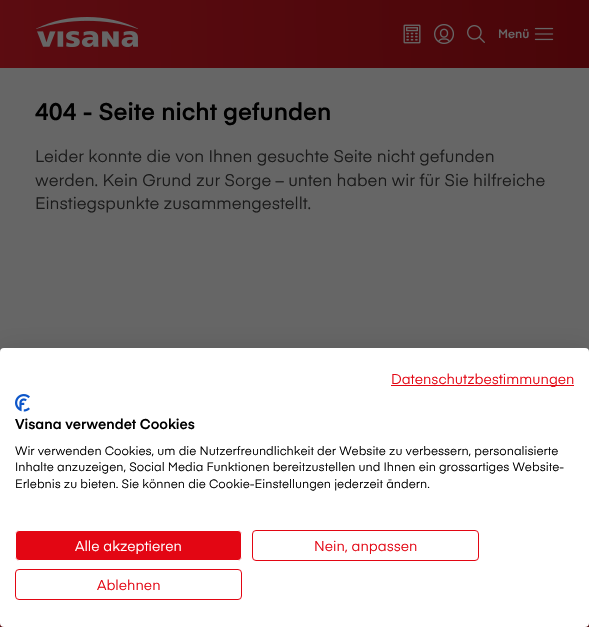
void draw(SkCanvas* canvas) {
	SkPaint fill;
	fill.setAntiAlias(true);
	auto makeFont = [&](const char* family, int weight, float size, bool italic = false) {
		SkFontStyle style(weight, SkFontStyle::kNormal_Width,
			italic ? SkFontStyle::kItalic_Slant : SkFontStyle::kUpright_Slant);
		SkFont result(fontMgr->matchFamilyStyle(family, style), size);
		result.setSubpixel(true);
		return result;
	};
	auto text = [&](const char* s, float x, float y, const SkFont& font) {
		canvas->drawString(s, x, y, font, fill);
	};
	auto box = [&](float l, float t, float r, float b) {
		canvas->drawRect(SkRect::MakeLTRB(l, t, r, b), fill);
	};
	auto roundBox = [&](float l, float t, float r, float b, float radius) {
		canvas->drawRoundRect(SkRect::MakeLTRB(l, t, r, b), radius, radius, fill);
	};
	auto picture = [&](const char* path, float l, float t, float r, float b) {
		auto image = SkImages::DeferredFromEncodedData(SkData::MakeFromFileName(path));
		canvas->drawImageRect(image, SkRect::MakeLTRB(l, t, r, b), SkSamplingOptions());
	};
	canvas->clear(0xFF666666);
	{
		const SkColor colors[] = {0xFF5C0C11, 0xFF400205};
		const float stops[] = {0, 1};
		const SkPoint ends[] = {{-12, 39}, {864, 24}};
		fill.setShader(SkGradientShader::MakeLinear(ends, colors, stops, 2, SkTileMode::kClamp));
		fill.setAlpha(255);
	}
	box(0, 0, 589, 68);
	picture("image0.png", 36, 17, 138, 47);
	picture("image1.png", 403, 24, 421, 44);
	picture("image2.png", 434, 24, 454, 44);
	picture("image3.png", 467, 25, 485, 43);
	picture("image4.png", 534, 27, 554, 41);
	{
		const SkColor colors[] = {0xFF5C0C11, 0xFF400205};
		const float stops[] = {0, 1};
		const SkPoint ends[] = {{-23, 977}, {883, 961}};
		fill.setShader(SkGradientShader::MakeLinear(ends, colors, stops, 2, SkTileMode::kClamp));
		fill.setAlpha(255);
	}
	box(0, 623, 589, 627);
	fill.setShader(nullptr);
	fill.setColor(0x1A000000);
	fill.setMaskFilter(SkMaskFilter::MakeBlur(kNormal_SkBlurStyle, 12));
	canvas->drawRoundRect(SkRect::MakeLTRB(0, 348, 589, 627), 4, 4, fill);
	fill.setMaskFilter(nullptr);
	fill.setColor(0xFFFFFFFF);
	roundBox(0, 348, 589, 627, 4);
	fill.setColor(0xFFE30613);
	box(391, 385, 574, 386);
	picture("image5.png", 15, 394, 30, 412);
	canvas->drawRoundRect(SkRect::MakeLTRB(15.5f, 530.5f, 241.5f, 560.5f), 3.5f, 3.5f, fill);
	fill.setStyle(SkPaint::kStroke_Style);
	fill.setStrokeWidth(1);
	fill.setColor(0xFFFFFFFF);
	canvas->drawRoundRect(SkRect::MakeLTRB(15.5f, 530.5f, 241.5f, 560.5f), 3.5f, 3.5f, fill);
	fill.setColor(0xFFE30613);
	canvas->drawRoundRect(SkRect::MakeLTRB(252.5f, 530.5f, 478.5f, 560.5f), 3.5f, 3.5f, fill);
	canvas->drawRoundRect(SkRect::MakeLTRB(15.5f, 569.5f, 241.5f, 599.5f), 3.5f, 3.5f, fill);
	auto font1 = makeFont("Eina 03", 600, 12);
	fill.setStyle(SkPaint::kFill_Style);
	fill.setColor(0xFF666666);
	text("Menü", 498, 38, font1);
	auto font2 = makeFont("Eina 03", 600, 23.75f);
	fill.setColor(0xFF000000);
	text("404 - Seite nicht gefunden", 35, 120, font2);
	auto font3 = makeFont("Eina 03", 400, 16.55f);
	fill.setColor(0xFF1A1A1A);
	text("Leider konnte die von Ihnen gesuchte Seite nicht gefunden", 35, 162, font3);
	text("werden. Kein Grund zur Sorge – unten haben wir für Sie hilfreiche", 35, 186, font3);
	text("Einstiegspunkte zusammengestellt.", 35, 209, font3);
	auto font4 = makeFont("Eina 03", 400, 14);
	fill.setColor(0xFFE30613);
	text("Datenschutzbestimmungen", 391, 384, font4);
	auto font5 = makeFont("Eina 03", 600, 14);
	fill.setColor(0xFF000000);
	text("Visana verwendet Cookies", 15, 429, font5);
	auto font6 = makeFont("Eina 03", 400, 12);
	text("Wir verwenden Cookies, um die Nutzerfreundlichkeit der Website zu verbessern, personalisierte", 15, 455, font6);
	text("Inhalte anzuzeigen, Social Media Funktionen bereitzustellen und Ihnen ein grossartiges Website-", 15, 471, font6);
	text("Erlebnis zu bieten. Sie können die Cookie-Einstellungen jederzeit ändern.", 15, 488, font6);
	fill.setColor(0xFFFFFFFF);
	text("Alle akzeptieren", 75, 551, font4);
	fill.setColor(0xFFE30613);
	text("Nein, anpassen", 314, 551, font4);
	text("Ablehnen", 97, 590, font4);
}
